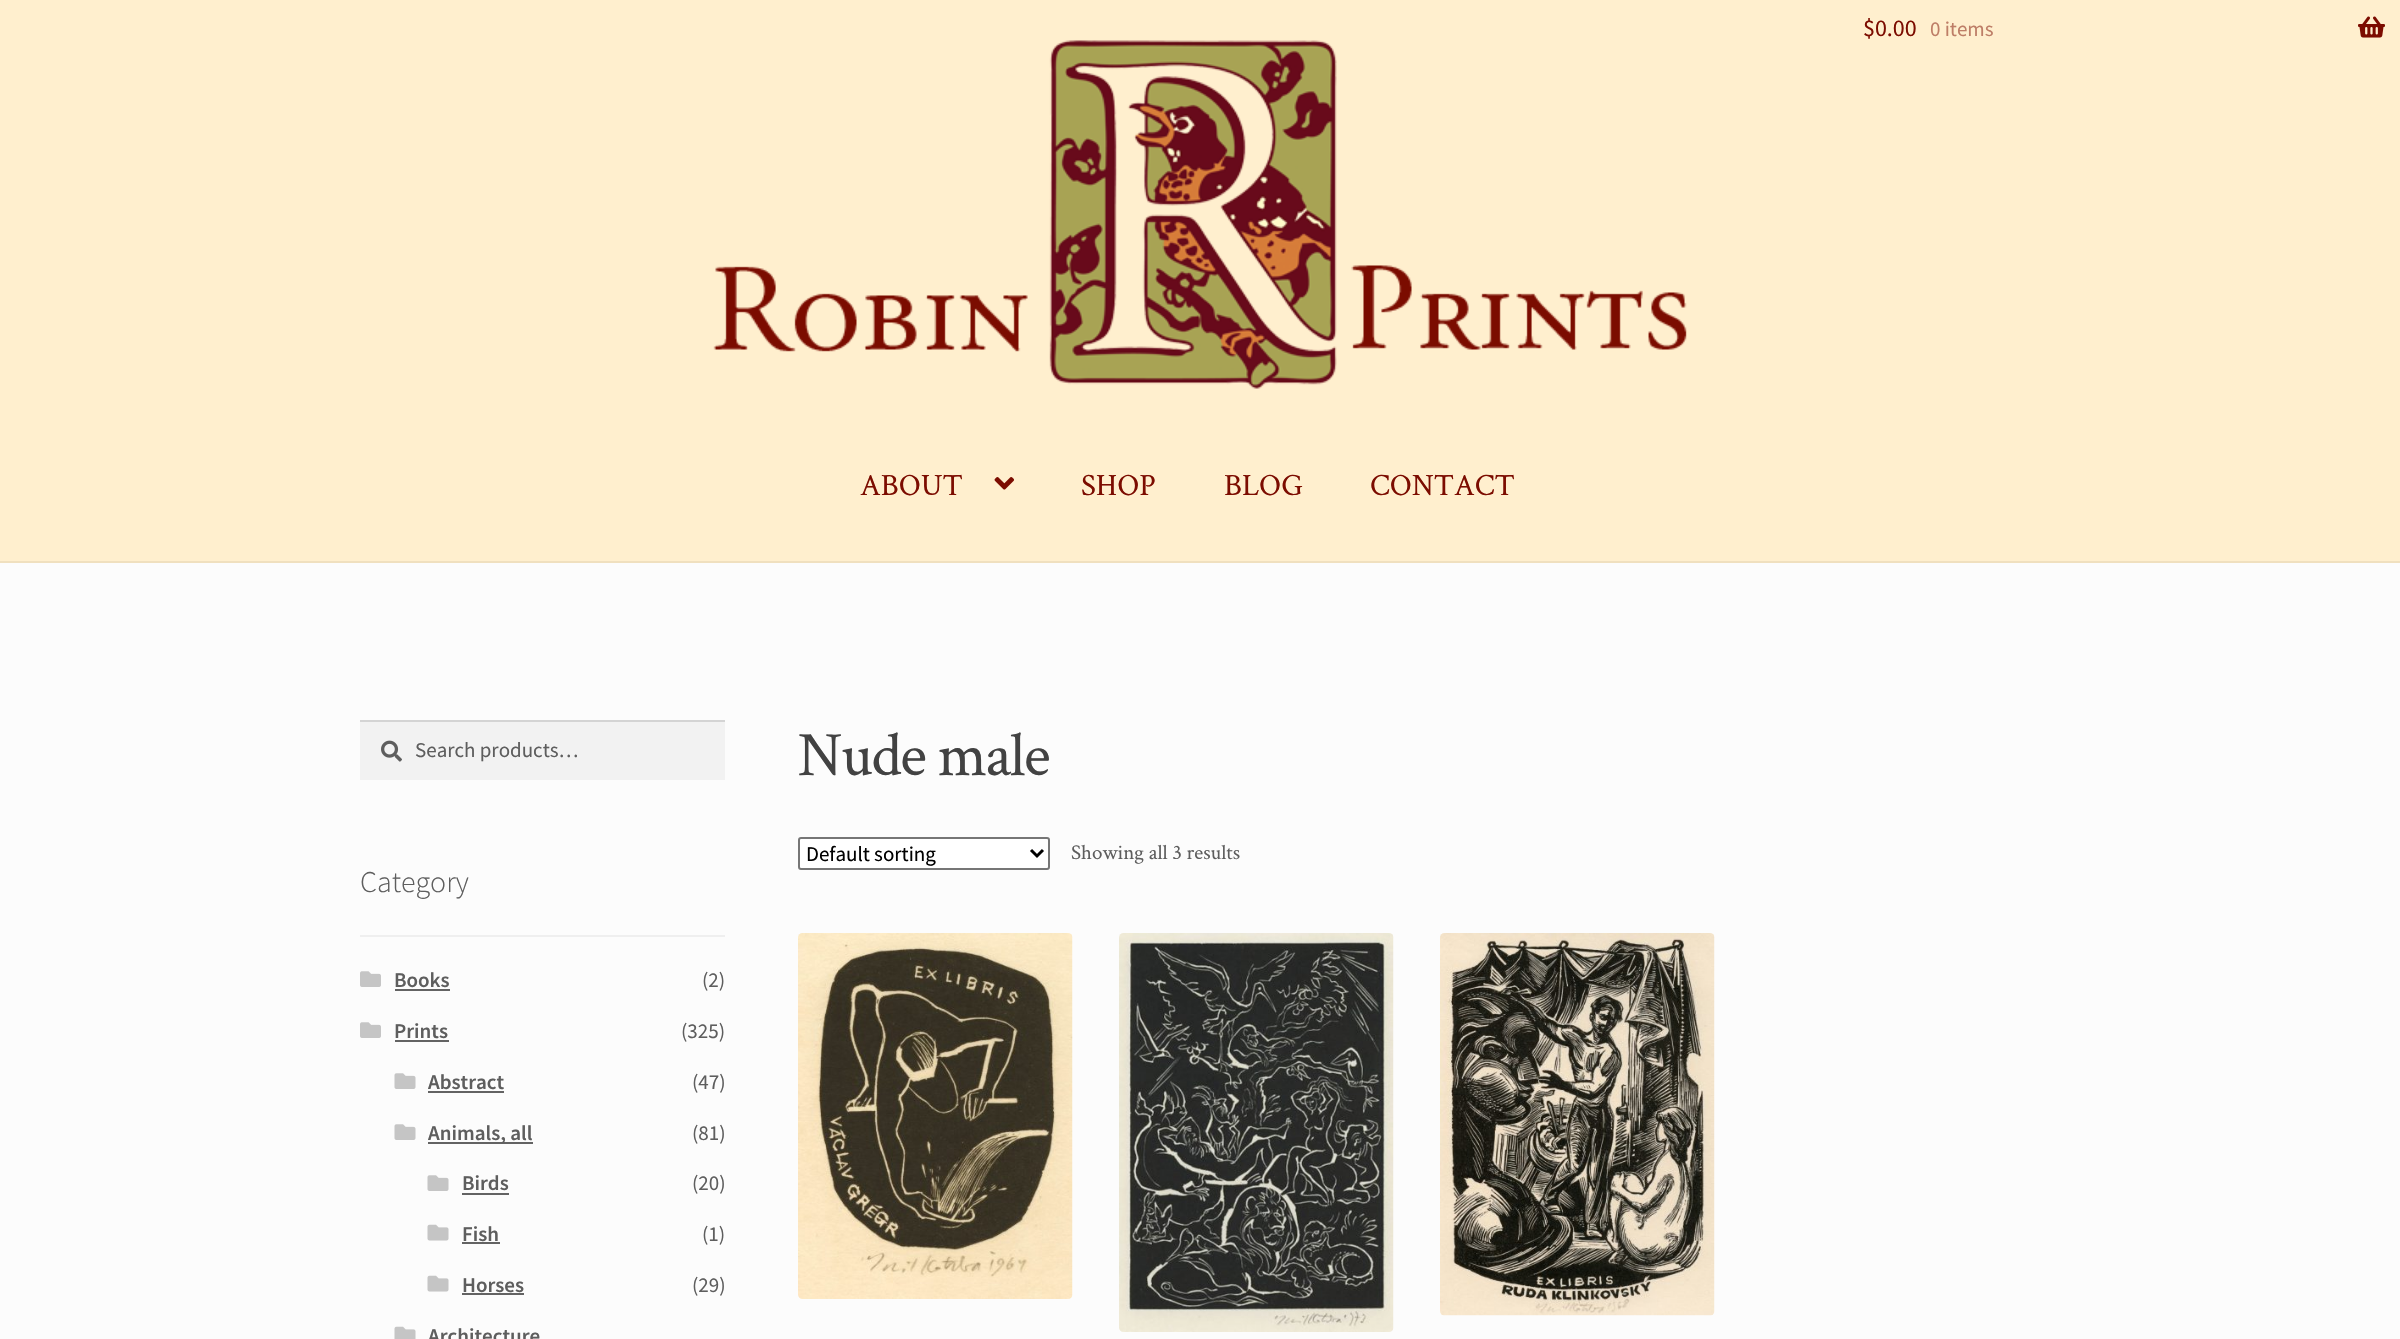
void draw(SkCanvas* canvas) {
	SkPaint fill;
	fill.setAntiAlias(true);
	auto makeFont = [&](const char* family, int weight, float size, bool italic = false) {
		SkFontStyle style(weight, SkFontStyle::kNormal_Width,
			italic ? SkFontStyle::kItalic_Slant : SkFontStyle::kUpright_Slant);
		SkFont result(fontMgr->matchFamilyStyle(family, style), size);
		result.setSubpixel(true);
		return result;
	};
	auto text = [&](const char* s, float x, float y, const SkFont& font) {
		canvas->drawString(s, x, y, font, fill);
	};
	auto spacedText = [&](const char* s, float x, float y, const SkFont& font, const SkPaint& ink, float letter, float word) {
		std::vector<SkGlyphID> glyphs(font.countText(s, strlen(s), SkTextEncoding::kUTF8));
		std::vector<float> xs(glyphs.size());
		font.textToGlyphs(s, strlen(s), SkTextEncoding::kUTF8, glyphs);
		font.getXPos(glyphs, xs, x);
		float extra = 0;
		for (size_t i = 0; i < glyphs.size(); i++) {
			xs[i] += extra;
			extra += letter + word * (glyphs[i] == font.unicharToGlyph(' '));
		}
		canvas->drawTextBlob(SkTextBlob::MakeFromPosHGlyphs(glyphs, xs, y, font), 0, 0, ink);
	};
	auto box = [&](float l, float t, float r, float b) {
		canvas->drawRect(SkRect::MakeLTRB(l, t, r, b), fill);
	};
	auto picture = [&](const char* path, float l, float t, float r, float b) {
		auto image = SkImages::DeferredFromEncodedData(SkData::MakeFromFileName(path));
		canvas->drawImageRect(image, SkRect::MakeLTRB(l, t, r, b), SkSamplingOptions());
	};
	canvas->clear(0xFFFCFCFC);
	fill.setColor(0xFFFFEFCE);
	box(0, 0, 2400, 561);
	fill.setColor(0xFFF0E0BF);
	box(0, 561, 2400, 563);
	picture("image0.png", 2358, 16, 2385, 38);
	picture("image1.png", 994, 477, 1014, 490);
	picture("image2.png", 713, 40, 1687, 389);
	fill.setColor(0xFFF2F2F2);
	box(360, 722, 725, 780);
	picture("image3.png", 381, 740, 402, 762);
	fill.setColor(0xFFD4D4D4);
	box(360, 720, 725, 722);
	fill.setColor(0xFFEFEFEF);
	box(360, 935, 725, 937);
	picture("image4.png", 360, 971, 381, 987);
	fill.setColor(0xFF636363);
	box(395, 989, 450, 991);
	picture("image4.png", 360, 1022, 381, 1038);
	box(395, 1040, 449, 1042);
	picture("image5.png", 394, 1073, 416, 1089);
	box(428, 1091, 504, 1093);
	picture("image5.png", 394, 1124, 416, 1140);
	box(428, 1142, 533, 1144);
	picture("image5.png", 427, 1175, 449, 1191);
	box(462, 1193, 509, 1195);
	picture("image6.png", 427, 1224, 449, 1241);
	box(462, 1242, 500, 1244);
	picture("image6.png", 427, 1275, 449, 1292);
	box(462, 1293, 524, 1295);
	picture("image7.png", 394, 1326, 416, 1339);
	fill.setColor(0xFFFFFFFF);
	canvas->drawRoundRect(SkRect::MakeLTRB(799, 838, 1049, 869), 2, 2, fill);
	fill.setStyle(SkPaint::kStroke_Style);
	fill.setStrokeWidth(2);
	fill.setColor(0xFF767676);
	canvas->drawRoundRect(SkRect::MakeLTRB(799, 838, 1049, 869), 2, 2, fill);
	fill.setStrokeWidth(3);
	fill.setColor(0xFF000000);
	canvas->drawPath(SkPathBuilder().moveTo(1031, 850).lineTo(1037, 856).lineTo(1043, 850).detach(), fill);
	picture("image8.png", 798, 933, 1073, 1299);
	picture("image9.png", 1119, 933, 1394, 1332);
	picture("image10.png", 1440, 933, 1715, 1316);
	auto font1 = makeFont("Source Sans Pro", 400, 24);
	fill.setStyle(SkPaint::kFill_Style);
	fill.setColor(0xFF7C0C00);
	text("$0.00", 1863, 36, font1);
	auto font2 = makeFont("Source Sans Pro", 400, 21);
	fill.setColor(0xFFBE7E67);
	text("0 items", 1930, 36, font2);
	auto font3 = makeFont("Crimson Text", 400, 31);
	fill.setColor(0xFF7C0C00);
	text("ABOUT", 860, 495, font3);
	text("SHOP", 1081, 495, font3);
	text("BLOG", 1224, 495, font3);
	text("CONTACT", 1370, 495, font3);
	fill.setColor(0xFF5E5E5E);
	text("Search products…", 415, 757, font2);
	auto font4 = makeFont("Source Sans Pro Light", 300, 30);
	text("Category", 360, 892, font4);
	auto font5 = makeFont("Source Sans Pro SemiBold", 600, 21);
	text("Books", 394, 987, font5);
	text("(2)", 702, 987, font2);
	text("Prints", 394, 1038, font5);
	text("(325)", 681, 1038, font2);
	text("Abstract", 428, 1089, font5);
	text("(47)", 692, 1089, font2);
	text("Animals, all", 428, 1140, font5);
	text("(81)", 692, 1140, font2);
	text("Birds", 462, 1190, font5);
	text("(20)", 692, 1190, font2);
	text("Fish", 462, 1241, font5);
	text("(1)", 702, 1241, font2);
	text("Horses", 462, 1292, font5);
	text("(29)", 692, 1292, font2);
	text("Architecture", 428, 1343, font5);
	auto font6 = makeFont("Crimson Text", 400, 63);
	fill.setColor(0xFF424242);
	spacedText("Nude male", 798, 775, font6, fill, -1.5f, 0);
	fill.setColor(0xFF000000);
	text("Default sorting", 806, 861, font2);
	auto font7 = makeFont("Crimson Text", 400, 21);
	fill.setColor(0xFF5E5E5E);
	text("Showing all 3 results", 1071, 859, font7);
}
